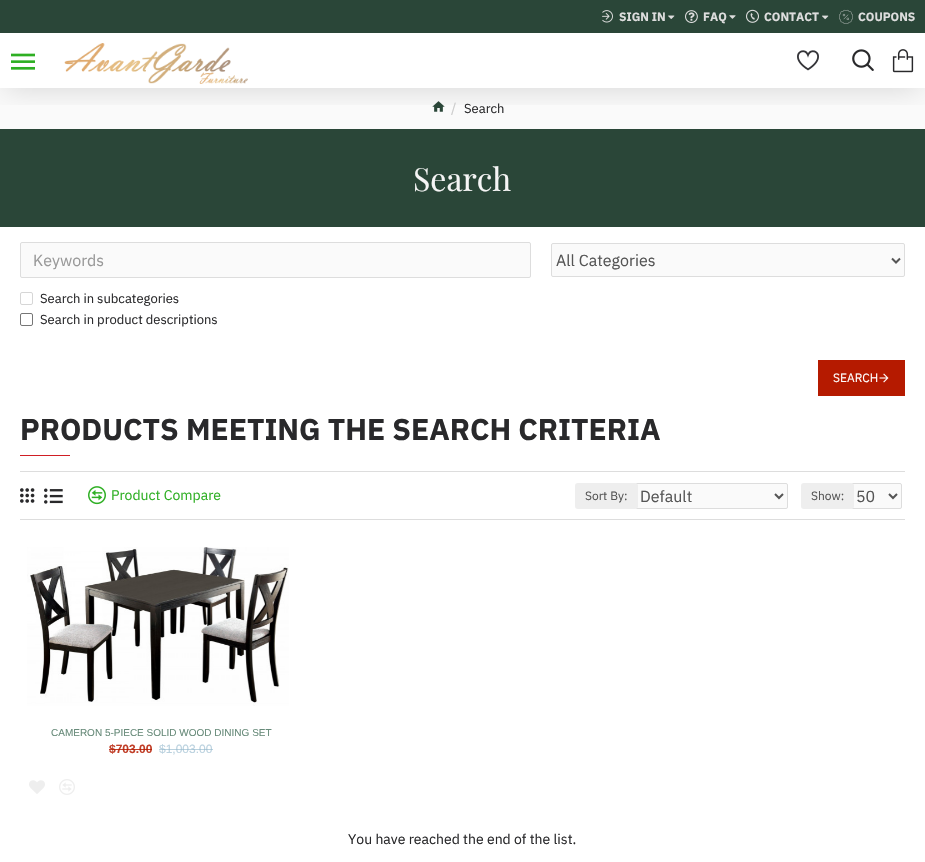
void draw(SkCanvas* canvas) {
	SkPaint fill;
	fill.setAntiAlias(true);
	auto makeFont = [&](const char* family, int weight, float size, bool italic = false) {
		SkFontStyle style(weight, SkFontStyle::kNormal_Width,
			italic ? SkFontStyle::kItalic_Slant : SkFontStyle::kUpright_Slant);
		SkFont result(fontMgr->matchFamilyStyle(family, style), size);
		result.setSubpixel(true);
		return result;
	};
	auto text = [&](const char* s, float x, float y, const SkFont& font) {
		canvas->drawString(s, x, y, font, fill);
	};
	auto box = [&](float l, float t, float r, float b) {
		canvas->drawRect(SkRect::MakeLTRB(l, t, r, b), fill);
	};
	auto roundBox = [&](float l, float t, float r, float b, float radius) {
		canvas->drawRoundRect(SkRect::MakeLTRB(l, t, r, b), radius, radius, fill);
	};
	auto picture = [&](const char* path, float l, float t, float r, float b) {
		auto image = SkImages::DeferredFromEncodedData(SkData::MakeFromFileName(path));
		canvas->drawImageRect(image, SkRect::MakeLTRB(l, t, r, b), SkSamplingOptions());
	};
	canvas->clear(0xFFFFFFFF);
	fill.setColor(0xFFFAFAFA);
	box(0, 88, 925, 129);
	picture("image12.png", 432, 101, 445, 112);
	fill.setColor(0xFF2A4638);
	box(0, 129, 925, 227);
	canvas->save();
	canvas->clipRect(SkRect::MakeLTRB(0, 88, 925, 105));
	fill.setColor(0x26000000);
	fill.setMaskFilter(SkMaskFilter::MakeBlur(kNormal_SkBlurStyle, 15));
	canvas->drawRect(SkRect::MakeLTRB(5, 43, 920, 88), fill);
	fill.setMaskFilter(nullptr);
	canvas->restore();
	picture("image0.png", 64, 43, 248, 84);
	picture("image1.png", 11, 53, 35, 70);
	picture("image2.png", 797, 50, 819, 71);
	picture("image3.png", 852, 49, 874, 71);
	picture("image4.png", 892, 49, 914, 73);
	fill.setColor(0xFF2A4638);
	box(0, 0, 925, 33);
	picture("image5.png", 602, 10, 613, 23);
	picture("image6.png", 668, 15, 675, 19);
	picture("image7.png", 685, 10, 698, 23);
	picture("image8.png", 729, 15, 736, 19);
	picture("image9.png", 746, 9, 759, 23);
	picture("image10.png", 822, 15, 829, 20);
	picture("image11.png", 839, 9, 853, 24);
	fill.setColor(0xFFFAFAFA);
	canvas->drawRoundRect(SkRect::MakeLTRB(20.5f, 242.5f, 530.5f, 277.5f), 1.5f, 1.5f, fill);
	fill.setStyle(SkPaint::kStroke_Style);
	fill.setStrokeWidth(1);
	fill.setColor(0xFFDDDDDD);
	canvas->drawRoundRect(SkRect::MakeLTRB(20.5f, 242.5f, 530.5f, 277.5f), 1.5f, 1.5f, fill);
	fill.setStyle(SkPaint::kFill_Style);
	fill.setColor(0xFFFAFAFA);
	canvas->drawRoundRect(SkRect::MakeLTRB(551.5f, 243.5f, 904.5f, 276.5f), 1.5f, 1.5f, fill);
	fill.setStyle(SkPaint::kStroke_Style);
	fill.setColor(0xFFDDDDDD);
	canvas->drawRoundRect(SkRect::MakeLTRB(551.5f, 243.5f, 904.5f, 276.5f), 1.5f, 1.5f, fill);
	fill.setStrokeWidth(2);
	fill.setColor(0xFF555555);
	canvas->drawPath(SkPathBuilder().moveTo(892, 258.5f).lineTo(896, 262.5f).lineTo(900, 258.5f).detach(), fill);
	fill.setStrokeWidth(1);
	fill.setColor(0xFFD6D6D6);
	canvas->drawRoundRect(SkRect::MakeLTRB(20.5f, 292.5f, 32.5f, 304.5f), 1.5f, 1.5f, fill);
	fill.setColor(0xFF767676);
	canvas->drawRoundRect(SkRect::MakeLTRB(20.5f, 313.5f, 32.5f, 325.5f), 1.5f, 1.5f, fill);
	fill.setStyle(SkPaint::kFill_Style);
	fill.setColor(0xFFB51A00);
	box(818, 360, 905, 396);
	picture("image13.png", 879, 373, 889, 383);
	fill.setColor(0xFFD01E24);
	box(20, 455, 70, 456);
	fill.setColor(0xFFDDDDDD);
	box(20, 471, 905, 472);
	box(20, 519, 905, 520);
	picture("image14.png", 20, 488, 35, 503);
	picture("image15.png", 44, 488, 63, 504);
	picture("image16.png", 88, 486, 106, 505);
	fill.setColor(0xFFFAFAFA);
	canvas->drawRoundRect(SkRect::MakeLTRB(635.5f, 483.5f, 787.5f, 508.5f), 1.5f, 1.5f, fill);
	fill.setStyle(SkPaint::kStroke_Style);
	fill.setColor(0xFFDDDDDD);
	canvas->drawRoundRect(SkRect::MakeLTRB(635.5f, 483.5f, 787.5f, 508.5f), 1.5f, 1.5f, fill);
	fill.setStyle(SkPaint::kFill_Style);
	fill.setColor(0xFFEEEEEE);
	roundBox(575, 483, 638, 509, 3);
	fill.setStyle(SkPaint::kStroke_Style);
	fill.setStrokeWidth(2);
	fill.setColor(0xFF555555);
	canvas->drawPath(SkPathBuilder().moveTo(775, 494).lineTo(779, 498).lineTo(783, 494).detach(), fill);
	fill.setStyle(SkPaint::kFill_Style);
	fill.setColor(0xFFFAFAFA);
	canvas->drawRoundRect(SkRect::MakeLTRB(851.5f, 483.5f, 901.5f, 508.5f), 1.5f, 1.5f, fill);
	fill.setStyle(SkPaint::kStroke_Style);
	fill.setStrokeWidth(1);
	fill.setColor(0xFFDDDDDD);
	canvas->drawRoundRect(SkRect::MakeLTRB(851.5f, 483.5f, 901.5f, 508.5f), 1.5f, 1.5f, fill);
	fill.setStyle(SkPaint::kFill_Style);
	fill.setColor(0xFFEEEEEE);
	roundBox(801, 483, 854, 509, 3);
	fill.setStyle(SkPaint::kStroke_Style);
	fill.setStrokeWidth(2);
	fill.setColor(0xFF555555);
	canvas->drawPath(SkPathBuilder().moveTo(889, 494).lineTo(893, 498).lineTo(897, 494).detach(), fill);
	picture("image17.png", 27, 547, 289, 706);
	picture("image18.png", 29, 780, 45, 794);
	picture("image19.png", 59, 779, 75, 795);
	auto font1 = makeFont("IBM Plex Sans", 700, 12);
	fill.setStyle(SkPaint::kFill_Style);
	fill.setColor(0xFFDDDDDD);
	text("SIGN IN", 619, 21, font1);
	text("FAQ", 703, 21, font1);
	text("CONTACT", 764, 21, font1);
	text("COUPONS", 858, 21, font1);
	auto font2 = makeFont("IBM Plex Sans", 400, 14);
	fill.setColor(0xFFCCCCCC);
	text("/", 451, 113, font2);
	auto font3 = makeFont("IBM Plex Sans", 400, 13);
	fill.setColor(0xFF29292B);
	text("Search", 464, 113, font3);
	auto font4 = makeFont("Playfair Display", 400, 32);
	fill.setColor(0xFFF5F5F5);
	text("Search", 413, 191, font4);
	auto font5 = makeFont("IBM Plex Sans", 400, 16);
	fill.setColor(0xFF999999);
	text("Keywords", 33, 266, font5);
	fill.setColor(0xFF555555);
	text("All Categories", 556, 266, font5);
	fill.setColor(0xFF29292B);
	text("Search in subcategories", 40, 303, font3);
	text("Search in product descriptions", 40, 324, font3);
	auto font6 = makeFont("IBM Plex Sans", 400, 12);
	fill.setColor(0xFFFFFFFF);
	text("SEARCH", 833, 382, font6);
	auto font7 = makeFont("IBM Plex Sans", 700, 30);
	fill.setColor(0xFF29292B);
	text("PRODUCTS MEETING THE SEARCH CRITERIA", 20, 440, font7);
	fill.setColor(0xFF2EAF23);
	text("Product Compare", 111, 500, font2);
	fill.setColor(0xFF555555);
	text("Sort By:", 585, 500, font6);
	text("Default", 640, 502, font5);
	text("Show:", 811, 500, font6);
	text("50", 856, 502, font5);
	auto font8 = makeFont("Liberation Sans", 400, 10);
	fill.setColor(0xFF688B7A);
	text("CAMERON 5-PIECE SOLID WOOD DINING SET", 51, 736, font8);
	auto font9 = makeFont("Liberation Sans", 700, 12);
	fill.setColor(0xFFC13F29);
	text("$703.00", 109, 753, font9);
	fill.setColor(0xD6B51A00);
	box(109, 749, 152, 750);
	auto font10 = makeFont("Liberation Sans", 400, 12);
	fill.setColor(0xFFBBD2DF);
	text("$1,003.00", 159, 753, font10);
	fill.setColor(0x9E91B6CC);
	box(159, 749, 213, 750);
	fill.setColor(0xFF29292B);
	text("You have reached the end of the list.", 348, 844, font2);
}
